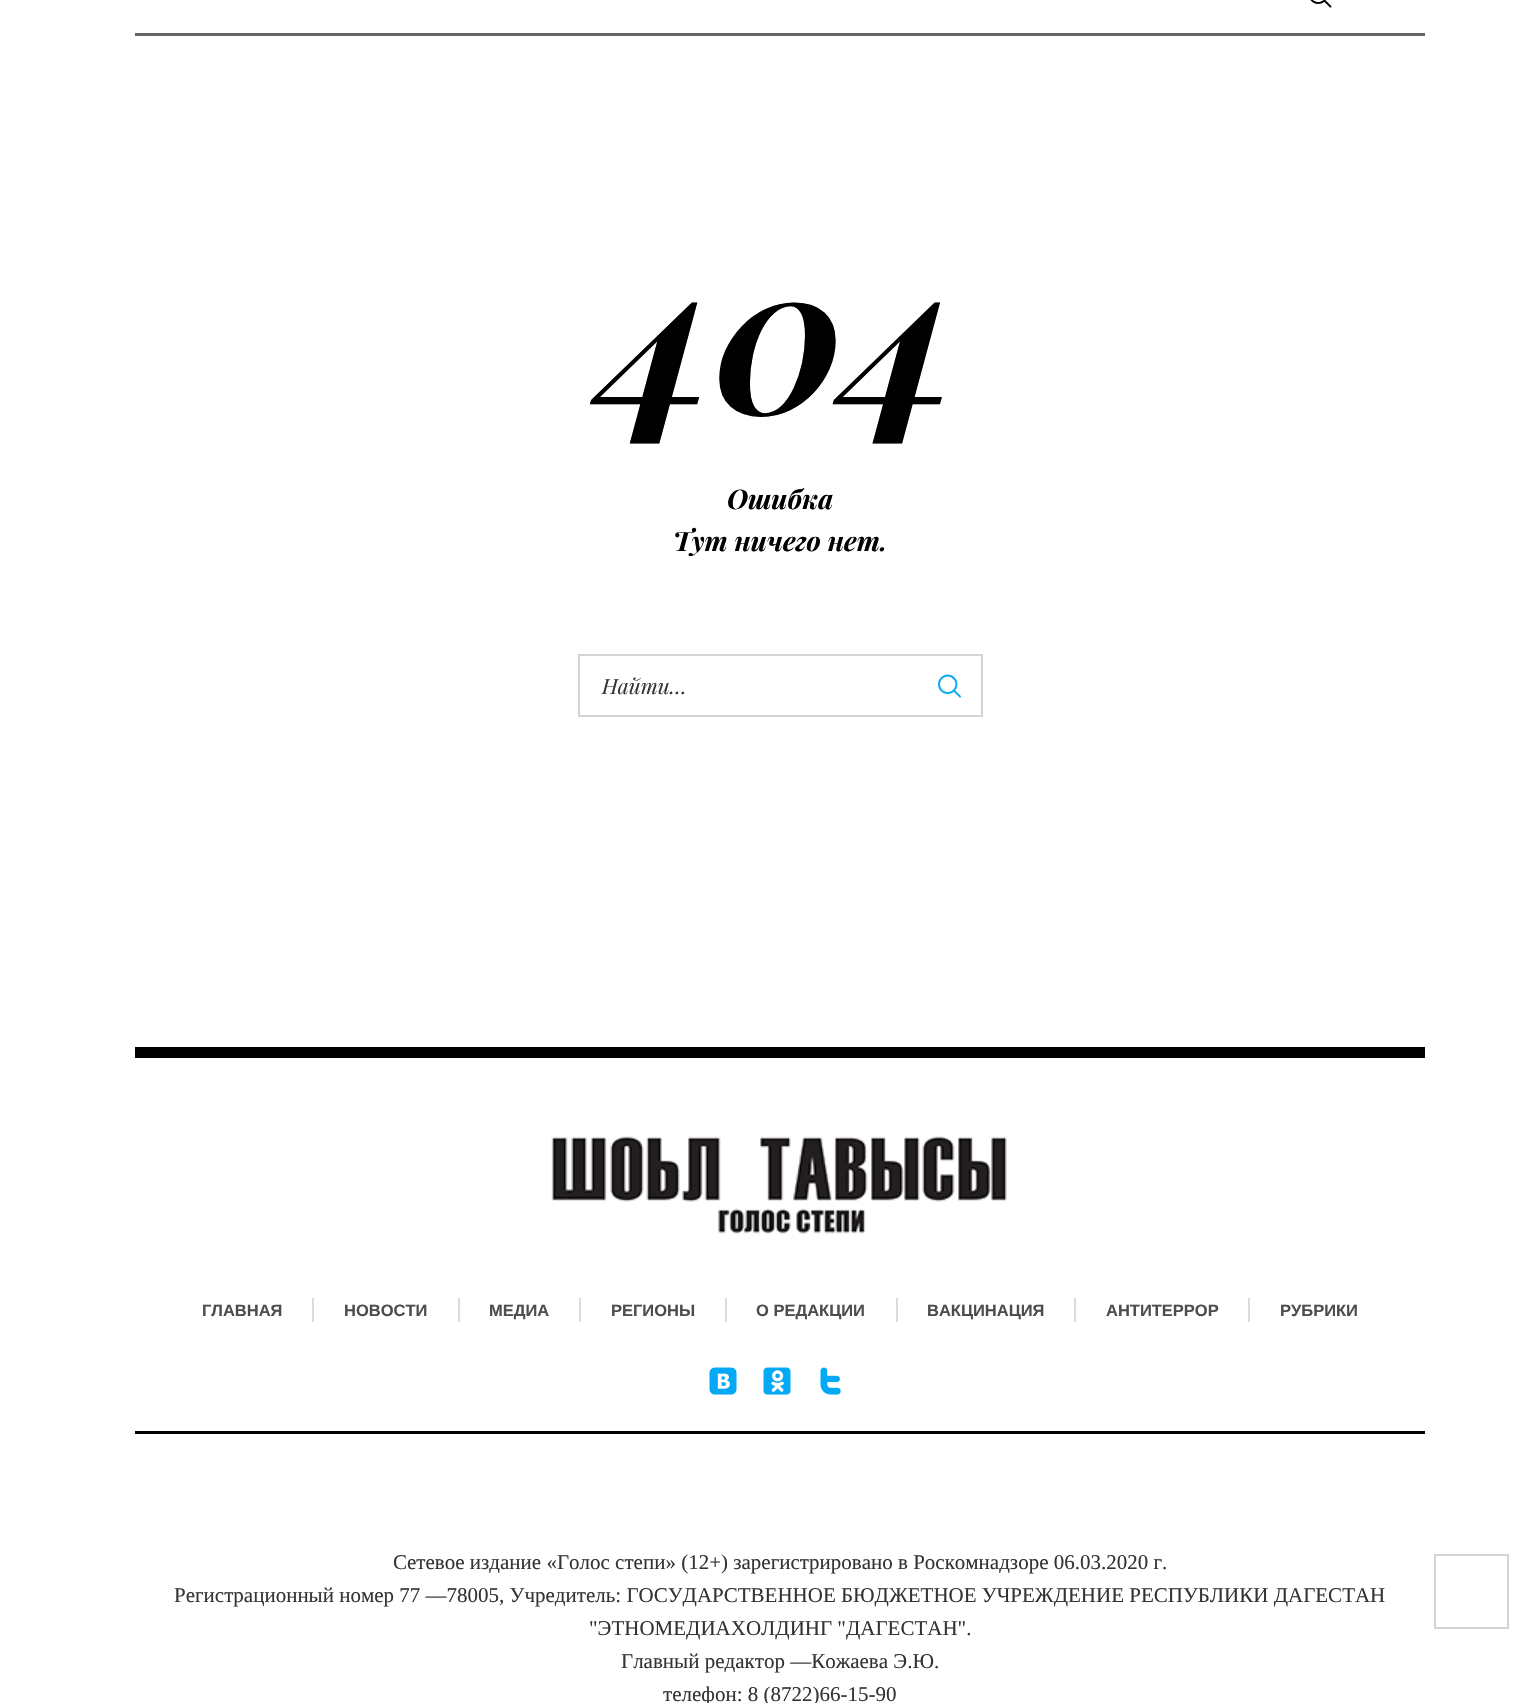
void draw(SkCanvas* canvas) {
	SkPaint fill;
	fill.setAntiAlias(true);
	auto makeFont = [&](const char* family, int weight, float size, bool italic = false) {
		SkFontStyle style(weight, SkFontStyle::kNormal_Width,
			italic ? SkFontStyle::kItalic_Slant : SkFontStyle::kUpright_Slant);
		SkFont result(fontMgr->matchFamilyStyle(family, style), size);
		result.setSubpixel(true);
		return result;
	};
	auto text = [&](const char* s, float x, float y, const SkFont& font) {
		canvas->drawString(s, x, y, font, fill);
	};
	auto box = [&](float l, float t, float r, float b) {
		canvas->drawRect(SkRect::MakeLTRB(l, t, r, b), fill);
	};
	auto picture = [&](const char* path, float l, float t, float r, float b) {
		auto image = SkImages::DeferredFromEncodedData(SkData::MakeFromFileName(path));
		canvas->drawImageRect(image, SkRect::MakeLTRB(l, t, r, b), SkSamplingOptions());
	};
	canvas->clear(0xFFFFFFFF);
	fill.setColor(0xFF666666);
	box(135, 33, 1425, 36);
	picture("image0.png", 1310, 0, 1332, 8);
	fill.setStyle(SkPaint::kStroke_Style);
	fill.setStrokeWidth(2);
	fill.setColor(0xFFD4D4D4);
	canvas->drawRect(SkRect::MakeLTRB(579, 655, 982, 716), fill);
	picture("image1.png", 938, 674, 961, 698);
	canvas->drawRect(SkRect::MakeLTRB(1435, 1555, 1508, 1628), fill);
	fill.setStyle(SkPaint::kFill_Style);
	fill.setColor(0xFF000000);
	box(135, 1047, 1425, 1058);
	picture("image2.png", 551, 1136, 1007, 1234);
	fill.setColor(0xFFDBDBDB);
	box(312, 1298, 314, 1322);
	box(458, 1298, 460, 1322);
	box(579, 1298, 581, 1322);
	box(725, 1298, 727, 1322);
	box(896, 1298, 898, 1322);
	box(1074, 1298, 1076, 1322);
	box(1248, 1298, 1250, 1322);
	picture("image3.png", 709, 1367, 737, 1395);
	picture("image4.png", 763, 1367, 791, 1395);
	picture("image5.png", 820, 1367, 841, 1395);
	fill.setColor(0xFF000000);
	box(135, 1431, 1425, 1434);
	auto font1 = makeFont("Playfair Display", 700, 210, true);
	text("404", 602, 414, font1);
	auto font2 = makeFont("Playfair Display", 700, 27, true);
	text("Ошибка", 727, 509, font2);
	text("Тут ничего нет.", 673, 551, font2);
	auto font3 = makeFont("Playfair Display", 400, 21, true);
	fill.setColor(0xFF333333);
	text("Найти…", 602, 694, font3);
	auto font4 = makeFont("Liberation Sans", 700, 16.5f);
	fill.setColor(0xFF4D4D4D);
	text("ГЛАВНАЯ", 202, 1316, font4);
	text("НОВОСТИ", 344, 1316, font4);
	text("МЕДИА", 489, 1316, font4);
	text("РЕГИОНЫ", 611, 1316, font4);
	text("О РЕДАКЦИИ", 756, 1316, font4);
	text("ВАКЦИНАЦИЯ", 927, 1316, font4);
	text("АНТИТЕРРОР", 1106, 1316, font4);
	text("РУБРИКИ", 1280, 1316, font4);
	auto font5 = makeFont("Liberation Serif", 400, 21);
	fill.setColor(0xFF333333);
	text("Сетевое издание «Голос степи» (12+) зарегистрировано в Роскомнадзоре 06.03.2020 г.", 393, 1569, font5);
	text("Регистрационный номер 77 —78005, Учредитель: ГОСУДАРСТВЕННОЕ БЮДЖЕТНОЕ УЧРЕЖДЕНИЕ РЕСПУБЛИКИ ДАГЕСТАН", 174, 1602, font5);
	text("\"ЭТНОМЕДИАХОЛДИНГ \"ДАГЕСТАН\".", 589, 1635, font5);
	text("Главный редактор —Кожаева Э.Ю.", 621, 1668, font5);
	text("телефон: 8 (8722)66-15-90", 663, 1701, font5);
}
